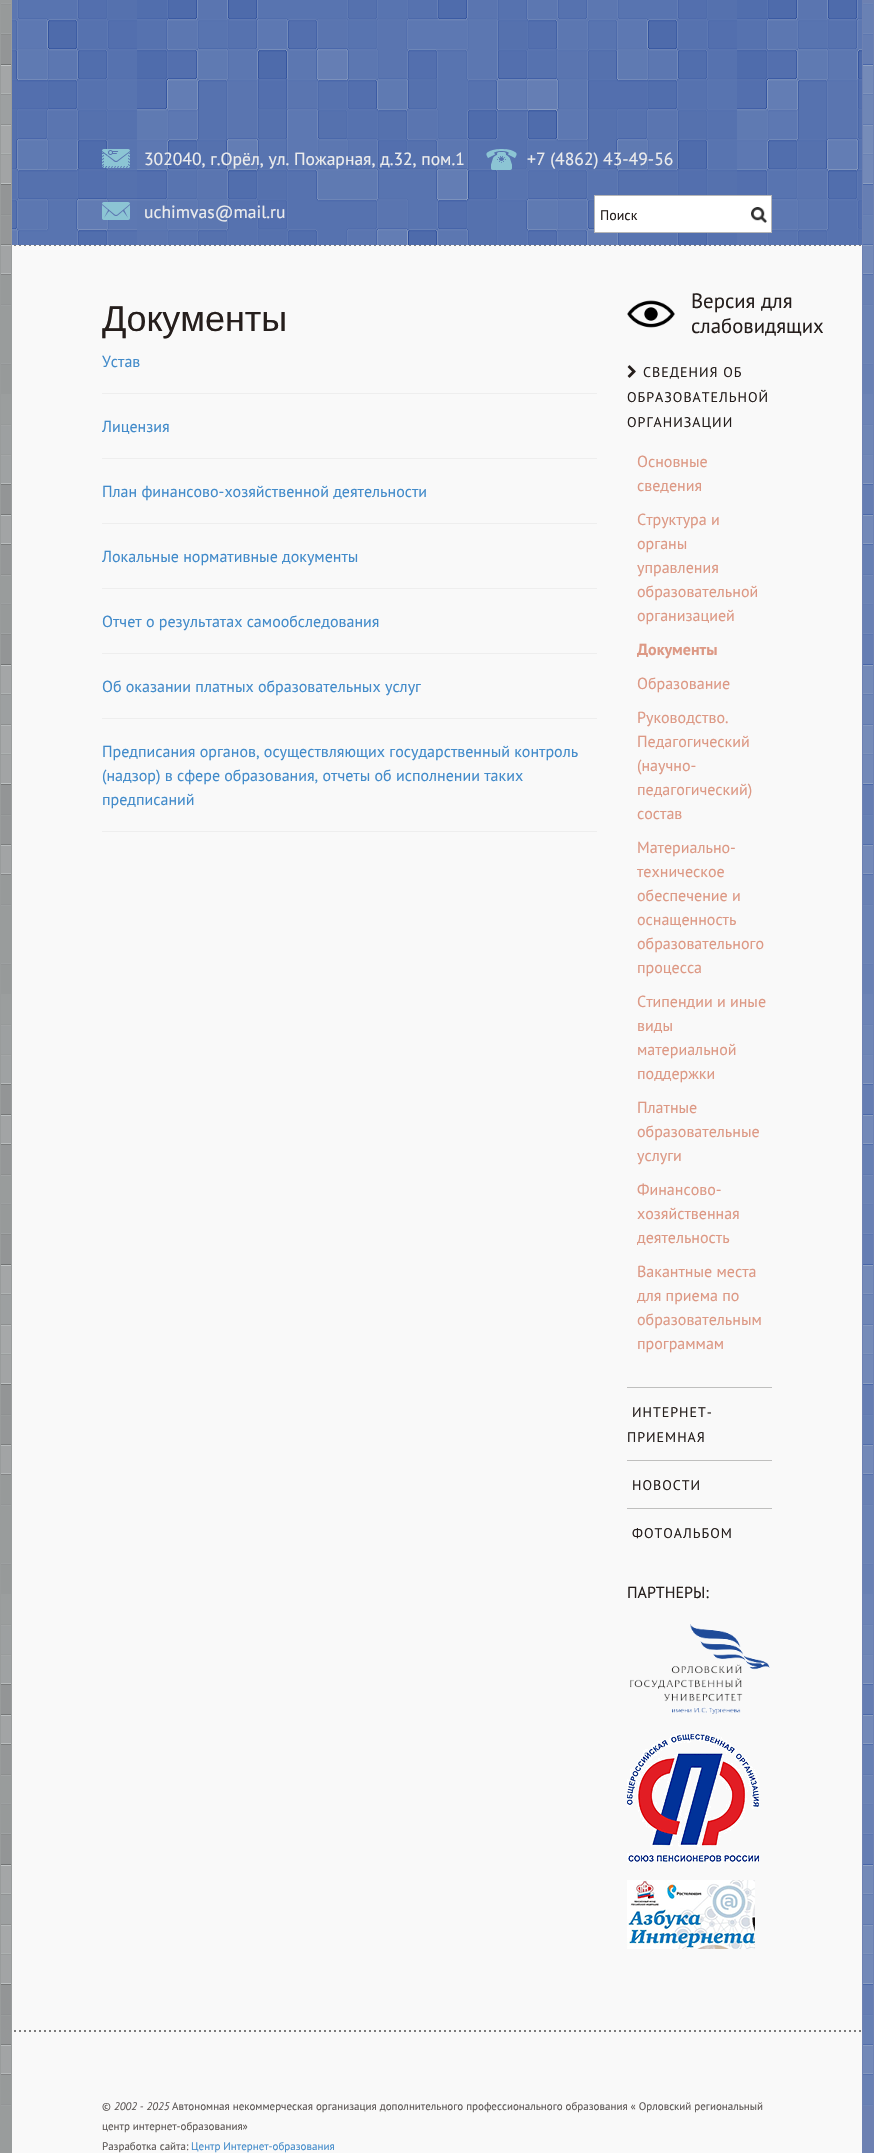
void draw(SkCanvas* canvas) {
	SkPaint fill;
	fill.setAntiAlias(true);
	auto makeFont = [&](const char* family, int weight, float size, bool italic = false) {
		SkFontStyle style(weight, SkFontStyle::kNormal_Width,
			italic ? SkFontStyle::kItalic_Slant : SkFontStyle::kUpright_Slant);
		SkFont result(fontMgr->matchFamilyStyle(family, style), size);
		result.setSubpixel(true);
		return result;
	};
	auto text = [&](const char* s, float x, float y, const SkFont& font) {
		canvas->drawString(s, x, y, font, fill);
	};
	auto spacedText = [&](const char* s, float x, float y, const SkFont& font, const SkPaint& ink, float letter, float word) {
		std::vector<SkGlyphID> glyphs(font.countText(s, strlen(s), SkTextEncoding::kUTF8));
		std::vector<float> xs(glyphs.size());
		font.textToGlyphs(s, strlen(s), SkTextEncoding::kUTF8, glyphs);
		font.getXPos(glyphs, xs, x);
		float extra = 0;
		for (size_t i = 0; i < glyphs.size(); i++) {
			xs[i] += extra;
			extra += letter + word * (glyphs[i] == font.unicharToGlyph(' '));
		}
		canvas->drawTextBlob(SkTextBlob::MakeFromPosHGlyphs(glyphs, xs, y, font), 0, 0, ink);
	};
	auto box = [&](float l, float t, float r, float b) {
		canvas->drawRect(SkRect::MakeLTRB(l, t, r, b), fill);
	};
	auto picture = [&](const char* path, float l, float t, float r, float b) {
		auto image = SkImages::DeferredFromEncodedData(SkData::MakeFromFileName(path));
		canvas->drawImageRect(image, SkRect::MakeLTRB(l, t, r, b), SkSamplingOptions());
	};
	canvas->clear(0xFFF9F9F9);
	fill.setColor(0xFF999C9C);
	box(1, 0, 11, 2153);
	picture("image0.png", 1, 3, 11, 2106);
	fill.setStyle(SkPaint::kStroke_Style);
	fill.setStrokeWidth(1);
	canvas->drawRect(SkRect::MakeLTRB(0.5f, -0.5f, 11.5f, 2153.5f), fill);
	picture("image1.png", 14, 245, 861, 246);
	picture("image2.png", 12, 0, 862, 245);
	picture("image3.png", 102, 149, 130, 168);
	picture("image4.png", 486, 149, 517, 170);
	picture("image5.png", 102, 202, 130, 220);
	fill.setStyle(SkPaint::kFill_Style);
	fill.setColor(0xFFFFFFFF);
	canvas->drawRect(SkRect::MakeLTRB(594.5f, 195.5f, 771.5f, 232.5f), fill);
	fill.setStyle(SkPaint::kStroke_Style);
	fill.setColor(0xFFB7B7B7);
	canvas->drawRect(SkRect::MakeLTRB(594.5f, 195.5f, 771.5f, 232.5f), fill);
	picture("image6.png", 751, 207, 767, 223);
	fill.setStyle(SkPaint::kFill_Style);
	fill.setColor(0xFF6D81B2);
	box(863, 0, 873, 2153);
	picture("image7.png", 863, 3, 873, 2106);
	fill.setStyle(SkPaint::kStroke_Style);
	canvas->drawRect(SkRect::MakeLTRB(862.5f, -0.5f, 873.5f, 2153.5f), fill);
	picture("image1.png", 14, 2030, 861, 2031);
	fill.setStyle(SkPaint::kFill_Style);
	fill.setColor(0xFFEEEEEE);
	box(102, 393, 597, 394);
	box(102, 458, 597, 459);
	box(102, 523, 597, 524);
	box(102, 588, 597, 589);
	box(102, 653, 597, 654);
	box(102, 718, 597, 719);
	box(102, 831, 597, 832);
	picture("image8.png", 627, 300, 675, 328);
	picture("image9.png", 627, 365, 636, 378);
	fill.setColor(0xFFBFBFBE);
	box(627, 1387, 772, 1388);
	box(627, 1460, 772, 1461);
	box(627, 1508, 772, 1509);
	picture("image10.png", 630, 1624, 770, 1714);
	picture("image11.png", 627, 1734, 759, 1862);
	picture("image12.png", 627, 1880, 755, 1949);
	picture("image1.png", 14, 2031, 861, 2032);
	auto font1 = makeFont("PT Sans", 400, 17.6f);
	fill.setColor(0xFFECECEC);
	text("302040, г.Орёл, ул. Пожарная, д.32, пом.1", 144, 165, font1);
	text("+7 (4862) 43-49-56", 527, 165, font1);
	text("uchimvas@mail.ru", 144, 218, font1);
	auto font2 = makeFont("PT Sans", 400, 14);
	fill.setColor(0xFF251E1C);
	text("Поиск", 600, 220, font2);
	auto font3 = makeFont("Liberation Sans", 400, 36);
	text("Документы", 102, 331, font3);
	auto font4 = makeFont("PT Sans", 400, 16);
	fill.setColor(0xFF428BCA);
	text("Устав", 102, 367, font4);
	text("Лицензия", 102, 432, font4);
	text("План финансово-хозяйственной деятельности", 102, 497, font4);
	text("Локальные нормативные документы", 102, 562, font4);
	text("Отчет о результатах самообследования", 102, 627, font4);
	text("Об оказании платных образовательных услуг", 102, 692, font4);
	text("Предписания органов, осуществляющих государственный контроль", 102, 757, font4);
	text("(надзор) в сфере образования, отчеты об исполнении таких", 102, 781, font4);
	text("предписаний", 102, 805, font4);
	auto font5 = makeFont("PT Sans", 400, 20.75f);
	fill.setColor(0xFF251E1C);
	text("Версия для", 691, 308, font5);
	text("слабовидящих", 691, 333, font5);
	spacedText("СВЕДЕНИЯ ОБ", 643, 377, font2, fill, 1, 0);
	spacedText("ОБРАЗОВАТЕЛЬНОЙ", 627, 402, font2, fill, 1, 0);
	spacedText("ОРГАНИЗАЦИИ", 627, 427, font2, fill, 1, 0);
	fill.setColor(0xFFDD9985);
	text("Основные", 637, 467, font4);
	text("сведения", 637, 491, font4);
	text("Структура и", 637, 525, font4);
	text("органы", 637, 549, font4);
	text("управления", 637, 573, font4);
	text("образовательной", 637, 597, font4);
	text("организацией", 637, 621, font4);
	auto font6 = makeFont("PT Sans", 700, 16);
	text("Документы", 637, 655, font6);
	text("Образование", 637, 689, font4);
	text("Руководство.", 637, 723, font4);
	text("Педагогический", 637, 747, font4);
	text("(научно-", 637, 771, font4);
	text("педагогический)", 637, 795, font4);
	text("состав", 637, 819, font4);
	text("Материально-", 637, 853, font4);
	text("техническое", 637, 877, font4);
	text("обеспечение и", 637, 901, font4);
	text("оснащенность", 637, 925, font4);
	text("образовательного", 637, 949, font4);
	text("процесса", 637, 973, font4);
	text("Стипендии и иные", 637, 1007, font4);
	text("виды", 637, 1031, font4);
	text("материальной", 637, 1055, font4);
	text("поддержки", 637, 1079, font4);
	text("Платные", 637, 1113, font4);
	text("образовательные", 637, 1137, font4);
	text("услуги", 637, 1161, font4);
	text("Финансово-", 637, 1195, font4);
	text("хозяйственная", 637, 1219, font4);
	text("деятельность", 637, 1243, font4);
	text("Вакантные места", 637, 1277, font4);
	text("для приема по", 637, 1301, font4);
	text("образовательным", 637, 1325, font4);
	text("программам", 637, 1349, font4);
	fill.setColor(0xFF251E1C);
	spacedText("ИНТЕРНЕТ-", 632, 1417, font2, fill, 1, 0);
	spacedText("ПРИЕМНАЯ", 627, 1442, font2, fill, 1, 0);
	spacedText("НОВОСТИ", 632, 1490, font2, fill, 1, 0);
	spacedText("ФОТОАЛЬБОМ", 632, 1538, font2, fill, 1, 0);
	text("ПАРТНЕРЫ:", 627, 1598, font4);
	auto font7 = makeFont("PT Sans", 400, 11);
	fill.setColor(0xFF5C5755);
	text("©", 102, 2110, font7);
	auto font8 = makeFont("PT Sans", 400, 11, true);
	text("2002 - 2025", 114, 2110, font8);
	text("Автономная некоммерческая организация дополнительного профессионального образования « Орловский региональный", 172, 2110, font7);
	text("центр интернет-образования»", 102, 2130, font7);
	text("Разработка сайта:", 102, 2150, font7);
	fill.setColor(0xFF428BCA);
	text("Центр Интернет-образования", 191, 2150, font7);
}
